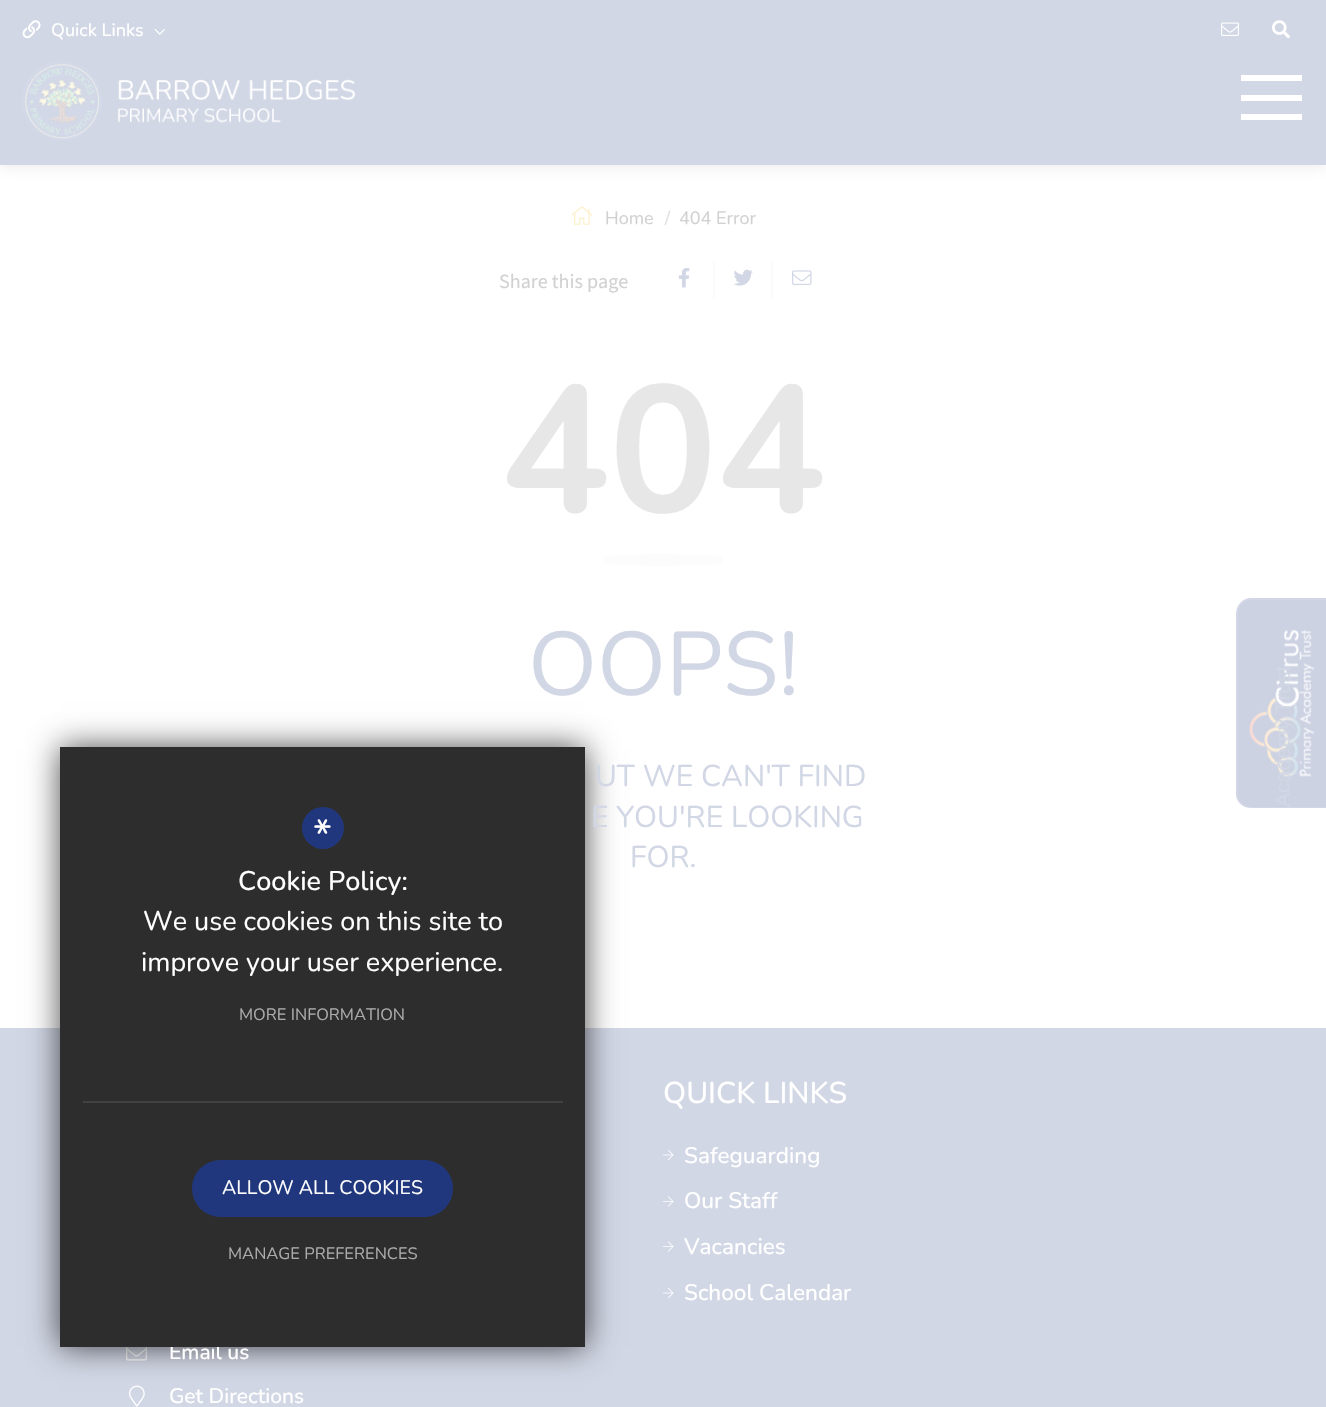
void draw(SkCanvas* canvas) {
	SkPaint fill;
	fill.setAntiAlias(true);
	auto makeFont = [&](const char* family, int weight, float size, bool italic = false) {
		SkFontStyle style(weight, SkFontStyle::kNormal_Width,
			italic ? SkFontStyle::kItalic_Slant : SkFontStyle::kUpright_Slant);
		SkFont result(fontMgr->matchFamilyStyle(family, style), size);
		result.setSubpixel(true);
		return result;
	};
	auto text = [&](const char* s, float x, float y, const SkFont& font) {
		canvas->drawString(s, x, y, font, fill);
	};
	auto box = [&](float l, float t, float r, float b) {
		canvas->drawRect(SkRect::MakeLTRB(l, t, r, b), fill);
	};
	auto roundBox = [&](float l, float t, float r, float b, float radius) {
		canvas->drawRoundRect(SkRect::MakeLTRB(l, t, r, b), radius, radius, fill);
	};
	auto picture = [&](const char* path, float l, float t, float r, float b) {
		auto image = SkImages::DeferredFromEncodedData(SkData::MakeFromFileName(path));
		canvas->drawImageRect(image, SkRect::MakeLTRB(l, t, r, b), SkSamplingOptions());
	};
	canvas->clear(0xFFFFFFFF);
	fill.setColor(0x80CCCCCC);
	fill.setMaskFilter(SkMaskFilter::MakeBlur(kNormal_SkBlurStyle, 7.5f));
	canvas->drawRect(SkRect::MakeLTRB(0, 0, 1326, 165), fill);
	fill.setMaskFilter(nullptr);
	fill.setColor(0xFFD2D7E5);
	box(0, 0, 1326, 165);
	picture("image0.png", 22, 20, 41, 39);
	picture("image1.png", 154, 28, 165, 35);
	picture("image2.png", 1221, 22, 1239, 36);
	picture("image3.png", 1272, 20, 1290, 39);
	fill.setColor(0xFFFFFFFF);
	box(1241, 75, 1302, 81);
	box(1241, 95, 1302, 101);
	box(1241, 114, 1302, 120);
	picture("image4.png", 22, 61, 356, 141);
	picture("image5.png", 571, 206, 593, 225);
	picture("image6.png", 678, 267, 690, 288);
	fill.setColor(0xFFFBFBFB);
	box(713, 261, 715, 299);
	picture("image7.png", 733, 269, 753, 286);
	box(771, 261, 773, 299);
	picture("image8.png", 792, 270, 812, 285);
	{
		const SkColor colors[] = {0xFFFBFBFB, 0xFFFEFEFE, 0xFFFFFFFF};
		const float stops[] = {0, 0.53f, 1};
		SkMatrix m = SkMatrix::Translate(663, 560).preScale(229, 21);
		fill.setShader(SkGradientShader::MakeRadial({0, 0}, 1, colors, stops, 3, SkTileMode::kClamp, 0, &m));
		fill.setAlpha(255);
	}
	box(603, 554, 723, 566);
	fill.setShader(nullptr);
	fill.setColor(0xFFCDD2E3);
	canvas->drawPath(SkPathBuilder().moveTo(1236, 794).lineTo(1236, 614).cubicTo(1236, 605, 1243, 598, 1251, 598).lineTo(1326, 598).lineTo(1326, 808).lineTo(1251, 808).cubicTo(1243, 808, 1236, 802, 1236, 794).close().detach(), fill);
	picture("image9.png", 1249, 629, 1315, 778);
	fill.setColor(0x1AFFFFFF);
	canvas->drawPath(SkPathBuilder(SkPathFillType::kEvenOdd).moveTo(1236, 794).lineTo(1236, 614).cubicTo(1236, 605, 1243, 598, 1251, 598).lineTo(1326, 598).lineTo(1326, 808).lineTo(1251, 808).cubicTo(1243, 808, 1236, 802, 1236, 794).close().moveTo(1238, 794).lineTo(1238, 614).cubicTo(1238, 606, 1244, 600, 1251, 600).lineTo(1326, 600).lineTo(1326, 807).lineTo(1251, 807).cubicTo(1244, 807, 1238, 801, 1238, 794).close().detach(), fill);
	fill.setColor(0xFFD2D7E5);
	box(0, 1028, 1326, 1407);
	picture("image12.png", 126, 1347, 147, 1361);
	picture("image13.png", 129, 1385, 145, 1407);
	fill.setColor(0xB3000000);
	fill.setMaskFilter(SkMaskFilter::MakeBlur(kNormal_SkBlurStyle, 15));
	canvas->drawRect(SkRect::MakeLTRB(60, 747, 585, 1347), fill);
	fill.setMaskFilter(nullptr);
	picture("image10.png", 663, 1149, 674, 1161);
	picture("image11.png", 663, 1196, 674, 1207);
	picture("image11.png", 663, 1241, 674, 1252);
	picture("image10.png", 663, 1287, 674, 1299);
	auto font1 = makeFont("Nunito", 500, 18);
	fill.setColor(0xFFFFFFFF);
	text("Quick Links", 51, 36, font1);
	auto font2 = makeFont("Nunito", 400, 18);
	fill.setColor(0xFFD1D1D1);
	text("Home", 605, 224, font2);
	fill.setColor(0xFFE0E0E0);
	text("/", 665, 224, font2);
	fill.setColor(0xFFD1D1D1);
	text("404 Error", 679, 224, font2);
	auto font3 = makeFont("Noto Sans KR", 400, 18);
	text("Share this page", 499, 288, font3);
	auto font4 = makeFont("Nunito", 700, 180);
	fill.setColor(0xFFE7E7E7);
	text("404", 501, 512, font4);
	auto font5 = makeFont("Nunito", 400, 90);
	fill.setColor(0xFFD2D7E5);
	text("OOPS!", 528, 695, font5);
	auto font6 = makeFont("Nunito", 400, 30);
	text("UT WE CAN'T FIND", 595, 786, font6);
	text("E YOU'RE LOOKING", 591, 827, font6);
	text("FOR.", 630, 867, font6);
	auto font7 = makeFont("Liberation Sans", 400, 21);
	canvas->save();
	canvas->rotate(-90, 1290, 807);
	text("Academy Trust", 1290, 807, font7);
	canvas->restore();
	auto font8 = makeFont("Nunito", 500, 30);
	fill.setColor(0xFFFFFFFF);
	text("QUICK LINKS", 663, 1103, font8);
	auto font9 = makeFont("Nunito", 500, 22.5f);
	text("Safeguarding", 684, 1163, font9);
	text("Our Staff", 684, 1208, font9);
	text("Vacancies", 684, 1254, font9);
	text("School Calendar", 684, 1300, font9);
	auto font10 = makeFont("Nunito", 500, 21);
	text("Email us", 169, 1359, font10);
	fill.setColor(0xFF2D2D2D);
	box(60, 747, 585, 1347);
	auto font11 = makeFont("Nunito", 400, 16.5f);
	fill.setColor(0xFFABABAB);
	text("MANAGE PREFERENCES", 228, 1259, font11);
	fill.setColor(0xFF20377D);
	roundBox(192, 1160, 453, 1217, 28.5f);
	auto font12 = makeFont("Nunito", 400, 19.5f);
	fill.setColor(0xFFFFFFFF);
	text("ALLOW ALL COOKIES", 222, 1194, font12);
	fill.setColor(0xFFABABAB);
	text("MORE INFORMATION", 239, 1020, font11);
	auto font13 = makeFont("Nunito", 400, 27);
	fill.setColor(0xFFFFFFFF);
	text("improve your user experience.", 141, 971, font13);
	text("We use cookies on this site to", 143, 930, font13);
	auto font14 = makeFont("Nunito", 500, 27);
	text("Cookie Policy:", 238, 890, font14);
	fill.setColor(0xFF20377D);
	canvas->drawCircle(323, 828, 21, fill);
	auto font15 = makeFont("Nunito", 400, 42);
	fill.setColor(0xFFFFFFFF);
	text("*", 313, 849, font15);
	fill.setColor(0xFF424242);
	box(83, 1101, 563, 1103);
	fill.setColor(0xFFFFFFFF);
	text("Get Directions", 169, 1403, font10);
}
